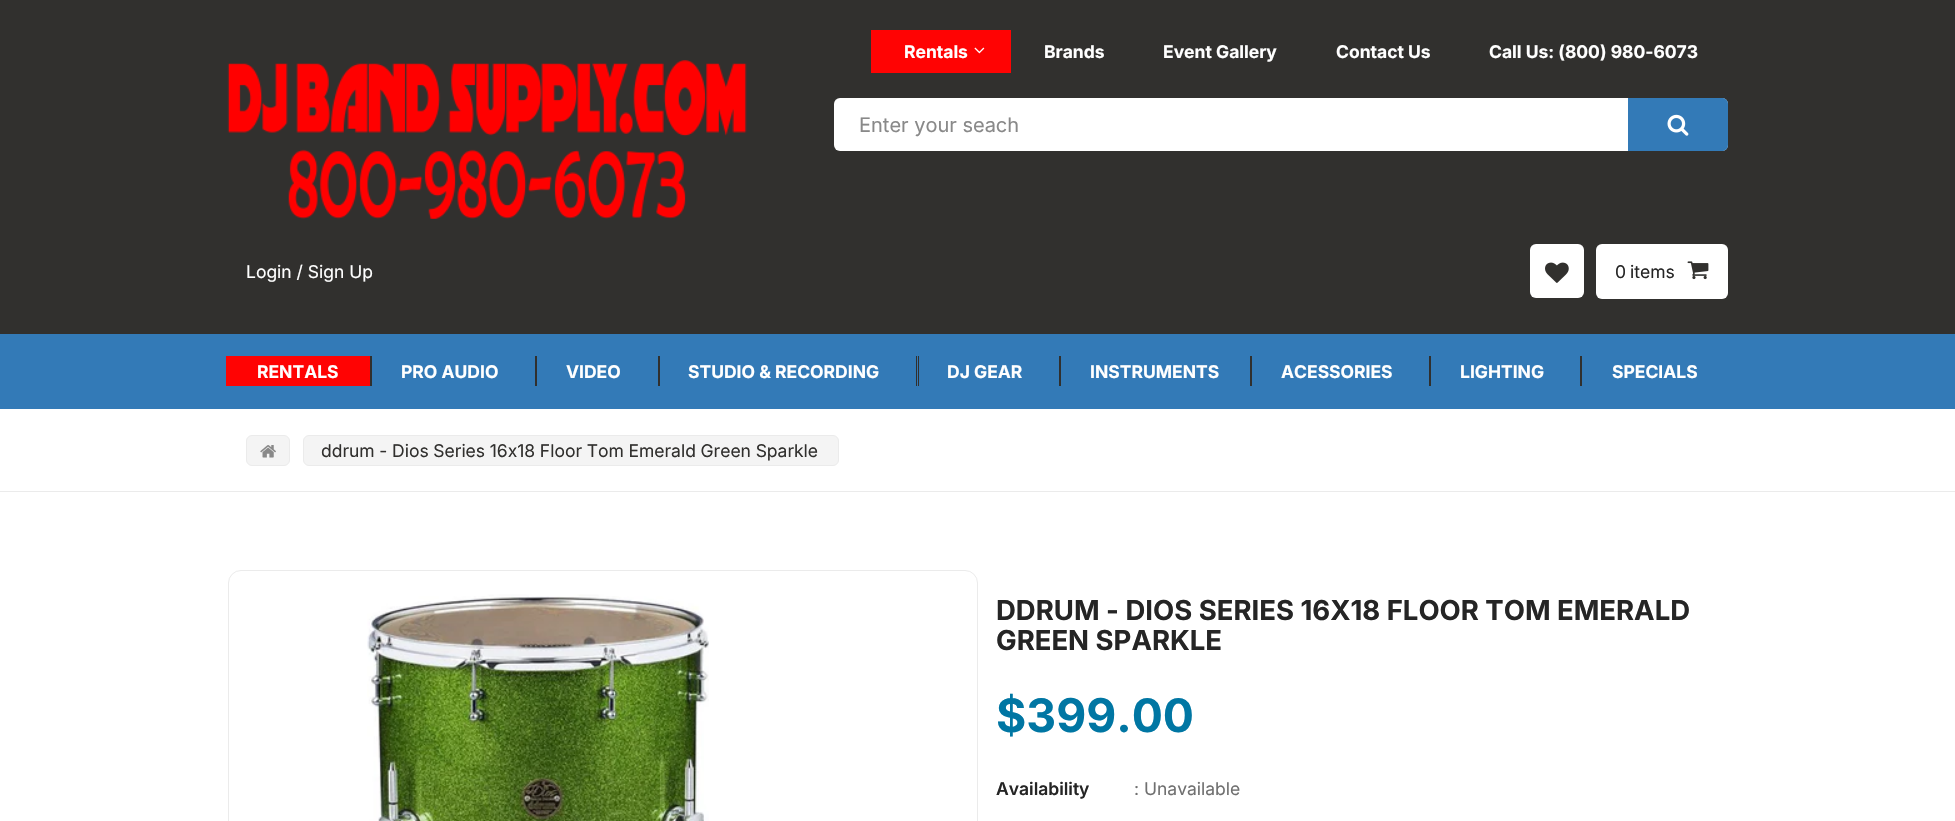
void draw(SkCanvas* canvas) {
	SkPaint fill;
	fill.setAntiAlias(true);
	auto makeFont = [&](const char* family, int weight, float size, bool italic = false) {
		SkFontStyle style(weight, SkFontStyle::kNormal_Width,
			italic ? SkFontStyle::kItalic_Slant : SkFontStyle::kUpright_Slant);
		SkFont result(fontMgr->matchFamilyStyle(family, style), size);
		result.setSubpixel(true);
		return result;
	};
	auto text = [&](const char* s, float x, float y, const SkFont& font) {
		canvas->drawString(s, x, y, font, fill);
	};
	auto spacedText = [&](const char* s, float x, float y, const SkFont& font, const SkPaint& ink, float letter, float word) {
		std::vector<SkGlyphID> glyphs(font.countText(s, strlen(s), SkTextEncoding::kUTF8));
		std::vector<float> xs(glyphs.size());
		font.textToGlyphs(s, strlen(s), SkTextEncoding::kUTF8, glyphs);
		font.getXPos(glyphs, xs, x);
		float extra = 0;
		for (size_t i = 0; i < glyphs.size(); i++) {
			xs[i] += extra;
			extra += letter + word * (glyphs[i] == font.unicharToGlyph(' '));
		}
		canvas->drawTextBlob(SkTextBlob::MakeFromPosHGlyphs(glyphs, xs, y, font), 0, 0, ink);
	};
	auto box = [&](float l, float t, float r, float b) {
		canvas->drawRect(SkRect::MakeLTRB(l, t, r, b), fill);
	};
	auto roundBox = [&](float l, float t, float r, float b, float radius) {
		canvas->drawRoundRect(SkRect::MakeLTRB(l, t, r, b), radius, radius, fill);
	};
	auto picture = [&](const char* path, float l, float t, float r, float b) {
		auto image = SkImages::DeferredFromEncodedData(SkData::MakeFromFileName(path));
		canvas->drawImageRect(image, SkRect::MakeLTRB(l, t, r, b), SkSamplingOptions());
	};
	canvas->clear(0xFFFFFFFF);
	fill.setColor(0xFF31302E);
	box(0, 0, 1955, 334);
	picture("image0.png", 227, 60, 747, 219);
	fill.setColor(0xFFFF0303);
	box(871, 30, 1011, 73);
	picture("image1.png", 974, 47, 985, 54);
	fill.setColor(0xFFFFFFFF);
	roundBox(834, 98, 1728, 151, 6);
	fill.setColor(0xFF337AB7);
	canvas->drawPath(SkPathBuilder().moveTo(1628, 98).lineTo(1722, 98).cubicTo(1725.5f, 98, 1728, 100.5f, 1728, 104).lineTo(1728, 145).cubicTo(1728, 148.5f, 1725.5f, 151, 1722, 151).lineTo(1628, 151).close().detach(), fill);
	picture("image2.png", 1667, 114, 1689, 136);
	fill.setColor(0xFFFFFFFF);
	roundBox(1530, 244, 1584, 298, 6);
	picture("image3.png", 1545, 262, 1569, 283);
	roundBox(1596, 244, 1728, 299, 6);
	picture("image4.png", 1687, 261, 1709, 280);
	fill.setColor(0xFF337AB7);
	box(0, 334, 1955, 409);
	fill.setColor(0xFFFF0303);
	box(226, 356, 370, 386);
	fill.setColor(0xFF31302E);
	box(370, 356, 372, 386);
	box(535, 356, 537, 386);
	box(658, 356, 660, 386);
	box(916, 356, 917, 386);
	box(918, 356, 919, 386);
	box(1059, 356, 1061, 386);
	box(1250, 356, 1252, 386);
	box(1429, 356, 1431, 386);
	box(1580, 356, 1582, 386);
	fill.setColor(0xFFEBEBEB);
	box(0, 491, 1955, 492);
	fill.setColor(0xFFF4F4F4);
	canvas->drawRoundRect(SkRect::MakeLTRB(246.5f, 435.5f, 289.5f, 465.5f), 5.5f, 5.5f, fill);
	fill.setStyle(SkPaint::kStroke_Style);
	fill.setStrokeWidth(1);
	fill.setColor(0xFFEBEBEB);
	canvas->drawRoundRect(SkRect::MakeLTRB(246.5f, 435.5f, 289.5f, 465.5f), 5.5f, 5.5f, fill);
	picture("image5.png", 260, 445, 276, 458);
	fill.setStyle(SkPaint::kFill_Style);
	fill.setColor(0xFFF4F4F4);
	canvas->drawRoundRect(SkRect::MakeLTRB(303.5f, 435.5f, 838.5f, 465.5f), 5.5f, 5.5f, fill);
	fill.setStyle(SkPaint::kStroke_Style);
	fill.setColor(0xFFEBEBEB);
	canvas->drawRoundRect(SkRect::MakeLTRB(303.5f, 435.5f, 838.5f, 465.5f), 5.5f, 5.5f, fill);
	canvas->drawRoundRect(SkRect::MakeLTRB(228.5f, 570.5f, 977.5f, 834.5f), 12.5f, 12.5f, fill);
	picture("image6.png", 367, 594, 709, 821);
	auto font1 = makeFont("Inter", 700, 17.5f);
	fill.setStyle(SkPaint::kFill_Style);
	fill.setColor(0xFFFFFFFF);
	text("Rentals", 904, 58, font1);
	text("Brands", 1044, 58, font1);
	text("Event Gallery", 1163, 58, font1);
	text("Contact Us", 1336, 58, font1);
	text("Call Us: (800) 980-6073", 1489, 58, font1);
	auto font2 = makeFont("Inter", 400, 20);
	fill.setColor(0xFF898989);
	text("Enter your seach", 859, 132, font2);
	auto font3 = makeFont("Inter", 400, 17.5f);
	fill.setColor(0xFFFFFFFF);
	text("Login / Sign Up", 246, 278, font3);
	fill.setColor(0xFF252525);
	text("0", 1615, 278, font3);
	text("items", 1630, 278, font3);
	fill.setColor(0xFFFFFFFF);
	text("RENTALS", 257, 378, font1);
	text("PRO AUDIO", 401, 378, font1);
	text("VIDEO", 566, 378, font1);
	text("STUDIO & RECORDING", 688, 378, font1);
	text("DJ GEAR", 947, 378, font1);
	text("INSTRUMENTS", 1090, 378, font1);
	text("ACESSORIES", 1281, 378, font1);
	text("LIGHTING", 1460, 378, font1);
	text("SPECIALS", 1612, 378, font1);
	fill.setColor(0xFF31302E);
	spacedText("ddrum - Dios Series 16x18 Floor Tom Emerald Green Sparkle", 321, 457, font3, fill, 0, -0.25f);
	auto font4 = makeFont("Inter", 700, 27.5f);
	fill.setColor(0xFF252525);
	text("DDRUM - DIOS SERIES 16X18 FLOOR TOM EMERALD", 996, 620, font4);
	text("GREEN SPARKLE", 996, 650, font4);
	auto font5 = makeFont("Inter", 700, 46.25f);
	fill.setColor(0xFF0076A3);
	text("$399.00", 996, 732, font5);
	auto font6 = makeFont("Inter", 600, 17.5f);
	fill.setColor(0xFF252525);
	text("Availability", 996, 795, font6);
	fill.setColor(0xFF707070);
	text(": Unavailable", 1134, 795, font3);
}
